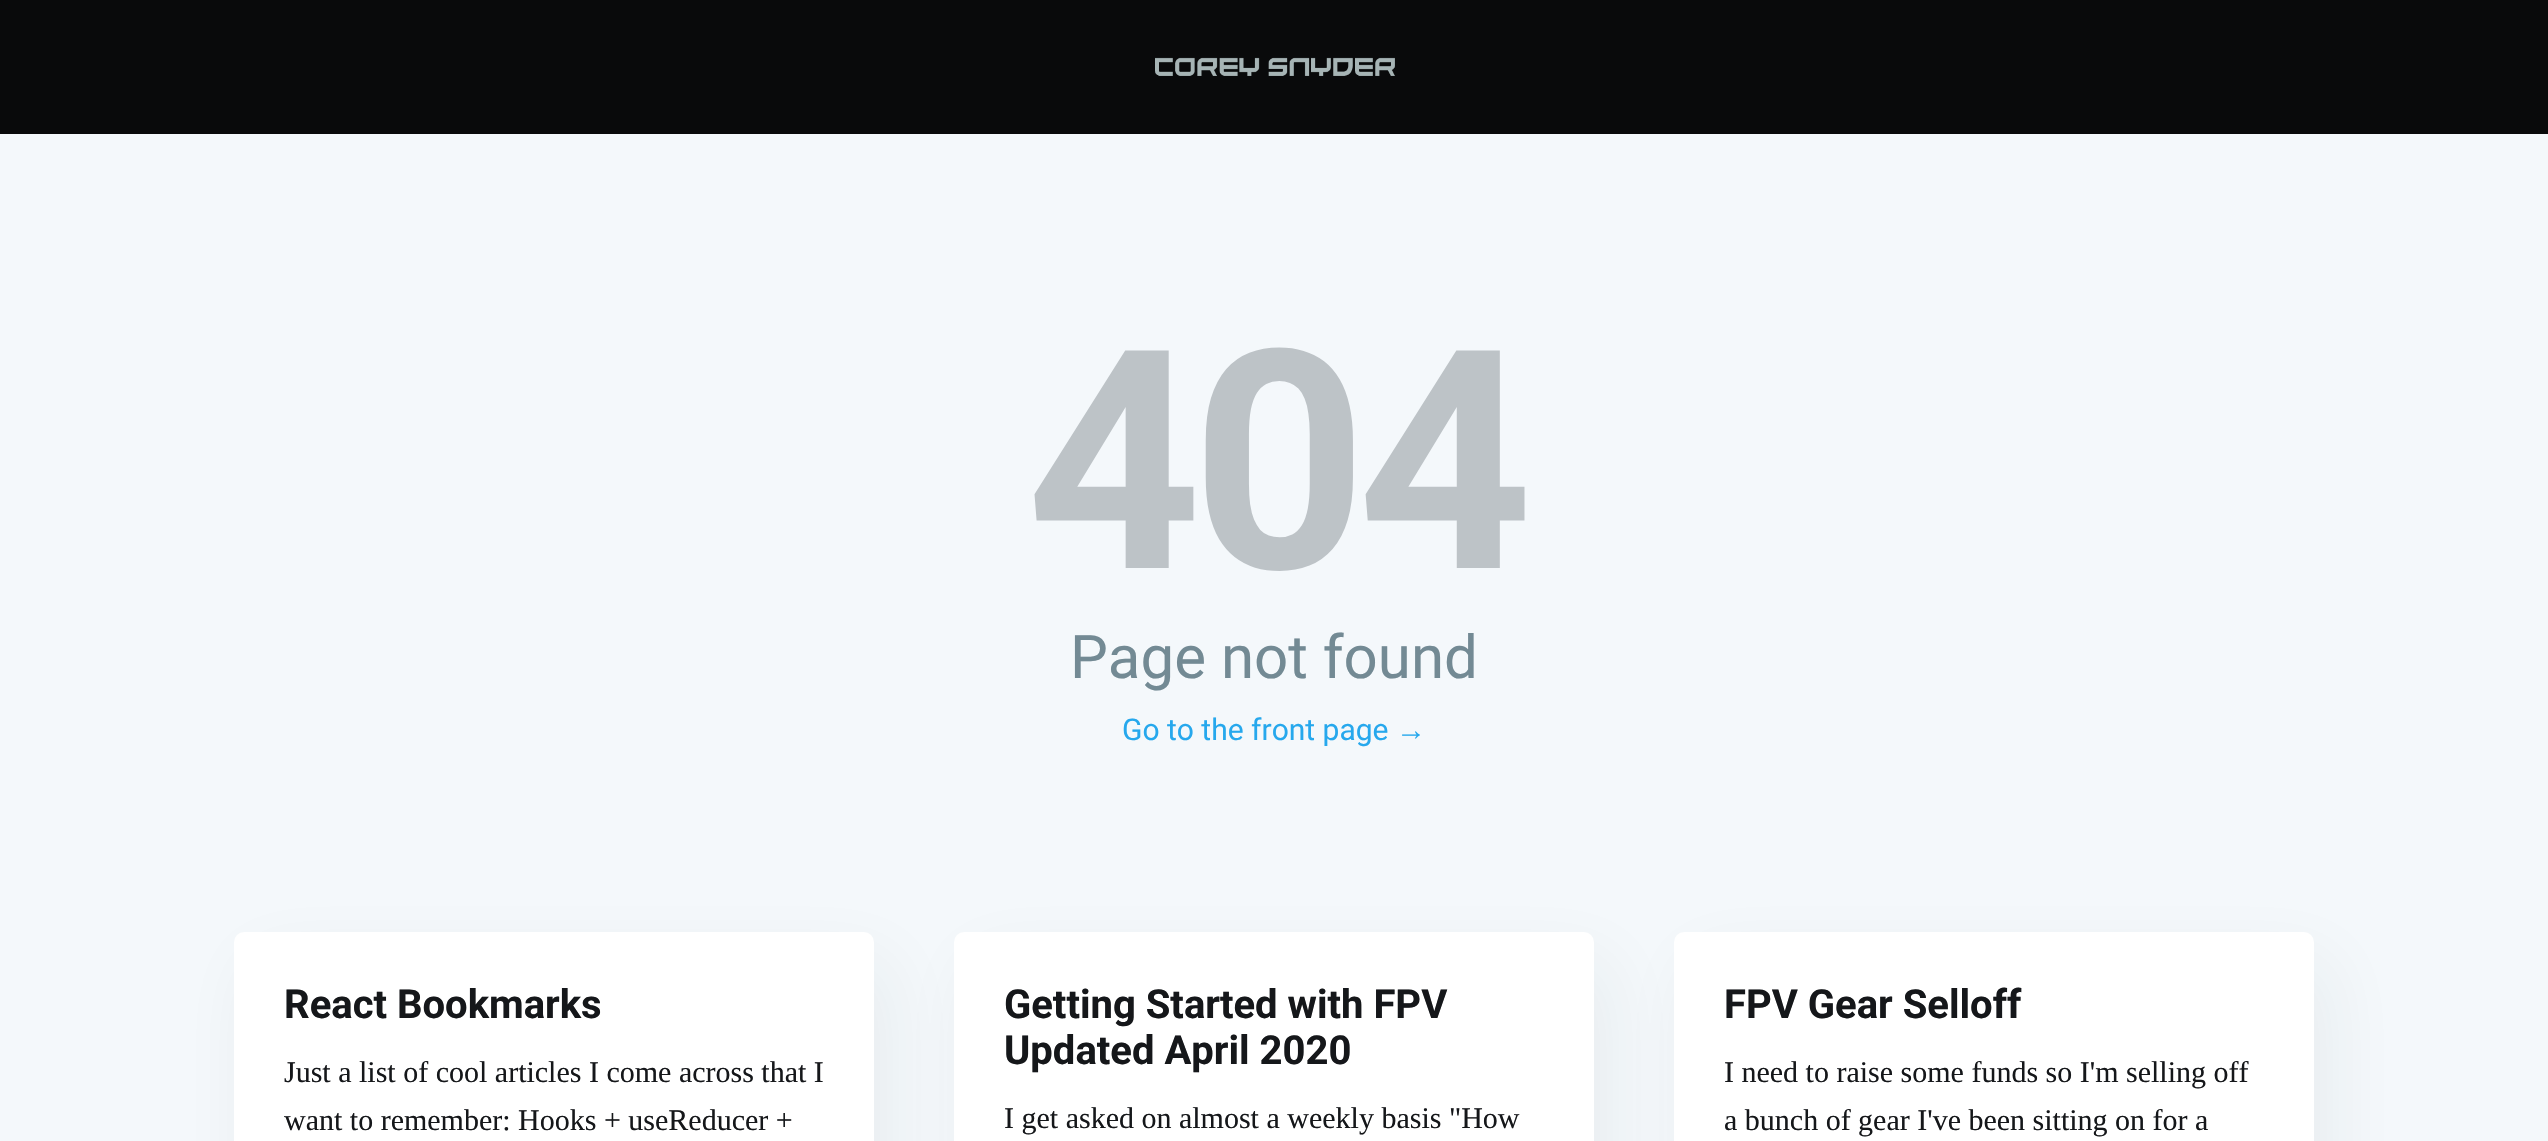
void draw(SkCanvas* canvas) {
	SkPaint fill;
	fill.setAntiAlias(true);
	auto makeFont = [&](const char* family, int weight, float size, bool italic = false) {
		SkFontStyle style(weight, SkFontStyle::kNormal_Width,
			italic ? SkFontStyle::kItalic_Slant : SkFontStyle::kUpright_Slant);
		SkFont result(fontMgr->matchFamilyStyle(family, style), size);
		result.setSubpixel(true);
		return result;
	};
	auto text = [&](const char* s, float x, float y, const SkFont& font) {
		canvas->drawString(s, x, y, font, fill);
	};
	auto spacedText = [&](const char* s, float x, float y, const SkFont& font, const SkPaint& ink, float letter, float word) {
		std::vector<SkGlyphID> glyphs(font.countText(s, strlen(s), SkTextEncoding::kUTF8));
		std::vector<float> xs(glyphs.size());
		font.textToGlyphs(s, strlen(s), SkTextEncoding::kUTF8, glyphs);
		font.getXPos(glyphs, xs, x);
		float extra = 0;
		for (size_t i = 0; i < glyphs.size(); i++) {
			xs[i] += extra;
			extra += letter + word * (glyphs[i] == font.unicharToGlyph(' '));
		}
		canvas->drawTextBlob(SkTextBlob::MakeFromPosHGlyphs(glyphs, xs, y, font), 0, 0, ink);
	};
	auto box = [&](float l, float t, float r, float b) {
		canvas->drawRect(SkRect::MakeLTRB(l, t, r, b), fill);
	};
	auto roundBox = [&](float l, float t, float r, float b, float radius) {
		canvas->drawRoundRect(SkRect::MakeLTRB(l, t, r, b), radius, radius, fill);
	};
	auto picture = [&](const char* path, float l, float t, float r, float b) {
		auto image = SkImages::DeferredFromEncodedData(SkData::MakeFromFileName(path));
		canvas->drawImageRect(image, SkRect::MakeLTRB(l, t, r, b), SkSamplingOptions());
	};
	canvas->clear(0xFFF4F8FB);
	fill.setColor(0xFF090A0B);
	box(0, 0, 2548, 134);
	picture("image0.png", 1155, 57, 1395, 76);
	fill.setColor(0x0F272C31);
	fill.setMaskFilter(SkMaskFilter::MakeBlur(kNormal_SkBlurStyle, 38));
	canvas->drawRoundRect(SkRect::MakeLTRB(250, 960, 890, 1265), 10, 10, fill);
	fill.setMaskFilter(nullptr);
	fill.setColor(0xFFFFFFFF);
	roundBox(234, 932, 874, 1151, 10);
	fill.setColor(0x0F272C31);
	fill.setMaskFilter(SkMaskFilter::MakeBlur(kNormal_SkBlurStyle, 38));
	canvas->drawRoundRect(SkRect::MakeLTRB(970, 960, 1610, 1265), 10, 10, fill);
	fill.setMaskFilter(nullptr);
	fill.setColor(0xFFFFFFFF);
	roundBox(954, 932, 1594, 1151, 10);
	fill.setColor(0x0F272C31);
	fill.setMaskFilter(SkMaskFilter::MakeBlur(kNormal_SkBlurStyle, 38));
	canvas->drawRoundRect(SkRect::MakeLTRB(1690, 960, 2330, 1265), 10, 10, fill);
	fill.setMaskFilter(nullptr);
	fill.setColor(0xFFFFFFFF);
	roundBox(1674, 932, 2314, 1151, 10);
	auto font1 = makeFont("Roboto", 700, 306);
	fill.setColor(0xFFBDC3C7);
	spacedText("404", 1026, 568, font1, fill, -10, 0);
	auto font2 = makeFont("Roboto", 400, 60);
	fill.setColor(0xFF738A94);
	text("Page not found", 1070, 678, font2);
	auto font3 = makeFont("Roboto", 400, 30);
	fill.setColor(0xFF26A8ED);
	text("Go to the front page", 1122, 740, font3);
	auto font4 = makeFont("Liberation Sans", 400, 30);
	text("→", 1396, 740, font4);
	auto font5 = makeFont("Roboto", 700, 40);
	fill.setColor(0xFF15171A);
	text("React Bookmarks", 284, 1018, font5);
	auto font6 = makeFont("Liberation Serif", 400, 30);
	text("Just a list of cool articles I come across that I", 284, 1082, font6);
	text("want to remember: Hooks + useReducer +", 284, 1130, font6);
	text("Getting Started with FPV", 1004, 1018, font5);
	text("Updated April 2020", 1004, 1064, font5);
	text("I get asked on almost a weekly basis \"How", 1004, 1128, font6);
	text("FPV Gear Selloff", 1724, 1018, font5);
	text("I need to raise some funds so I'm selling off", 1724, 1082, font6);
	text("a bunch of gear I've been sitting on for a", 1724, 1130, font6);
}
